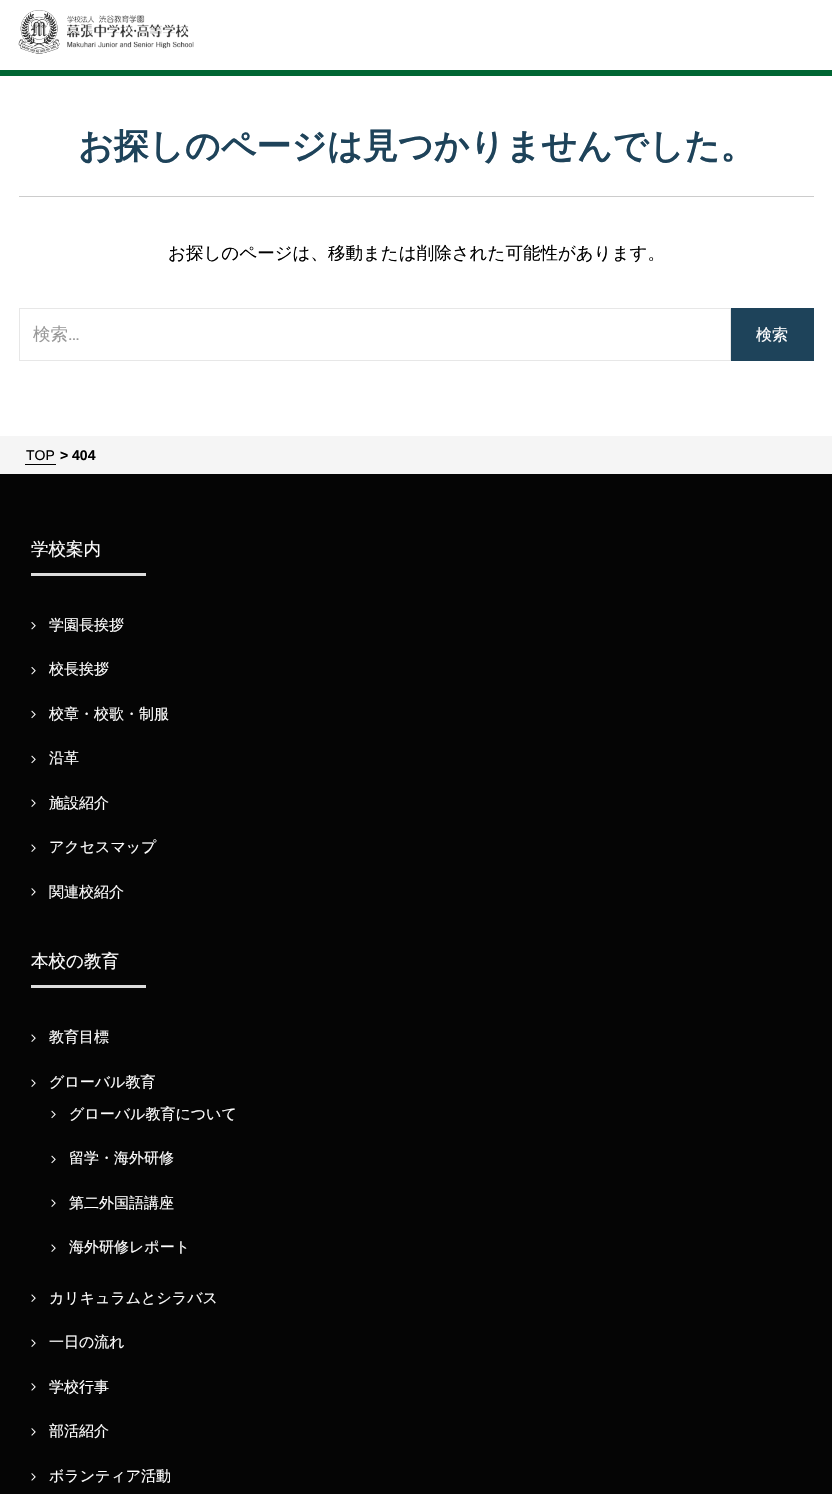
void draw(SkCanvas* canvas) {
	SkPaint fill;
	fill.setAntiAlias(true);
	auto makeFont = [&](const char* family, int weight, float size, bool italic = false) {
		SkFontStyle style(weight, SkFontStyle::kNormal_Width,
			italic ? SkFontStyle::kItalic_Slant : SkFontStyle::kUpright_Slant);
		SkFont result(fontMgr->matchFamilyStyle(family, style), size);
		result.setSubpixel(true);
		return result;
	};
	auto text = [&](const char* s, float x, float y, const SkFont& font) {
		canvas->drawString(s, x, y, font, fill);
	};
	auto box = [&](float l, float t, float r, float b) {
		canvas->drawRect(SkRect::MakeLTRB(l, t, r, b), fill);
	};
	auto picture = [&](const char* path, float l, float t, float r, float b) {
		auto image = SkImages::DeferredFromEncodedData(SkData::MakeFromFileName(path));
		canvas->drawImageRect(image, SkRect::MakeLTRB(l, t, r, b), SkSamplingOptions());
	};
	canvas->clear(0xFFFFFFFF);
	fill.setColor(0xFF006633);
	box(0, 70, 832, 76);
	picture("image0.png", 18, 10, 194, 54);
	fill.setColor(0xFFCCCCCC);
	box(19, 196, 814, 197);
	fill.setStyle(SkPaint::kStroke_Style);
	fill.setStrokeWidth(1);
	fill.setColor(0xFFE7E7E7);
	canvas->drawRect(SkRect::MakeLTRB(19.5f, 308.5f, 730.5f, 360.5f), fill);
	fill.setStyle(SkPaint::kFill_Style);
	fill.setColor(0xFF1E435A);
	box(731, 308, 814, 361);
	fill.setColor(0xFFF5F5F5);
	box(0, 436, 832, 474);
	fill.setColor(0xFF000000);
	box(25, 464, 56, 465);
	fill.setColor(0xFF050505);
	box(0, 474, 832, 1494);
	fill.setColor(0xFFDDDDDD);
	box(31, 573, 146, 576);
	picture("image1.png", 31, 622, 36, 630);
	picture("image1.png", 31, 667, 36, 675);
	picture("image2.png", 31, 710, 36, 719);
	picture("image2.png", 31, 755, 36, 764);
	picture("image3.png", 31, 799, 36, 807);
	picture("image3.png", 31, 844, 36, 852);
	picture("image4.png", 31, 888, 36, 896);
	box(31, 985, 146, 988);
	picture("image3.png", 31, 1034, 36, 1042);
	picture("image3.png", 31, 1079, 36, 1087);
	picture("image2.png", 51, 1110, 56, 1119);
	picture("image2.png", 51, 1155, 56, 1164);
	picture("image3.png", 51, 1199, 56, 1207);
	picture("image3.png", 51, 1244, 56, 1252);
	picture("image3.png", 31, 1294, 36, 1302);
	picture("image3.png", 31, 1339, 36, 1347);
	picture("image4.png", 31, 1383, 36, 1391);
	picture("image4.png", 31, 1428, 36, 1436);
	picture("image4.png", 31, 1473, 36, 1481);
	auto font1 = makeFont("WenQuanYi Zen Hei", 700, 35);
	fill.setColor(0xFF1E435A);
	text("お探しのページは見つかりませんでした。", 78, 158, font1);
	auto font2 = makeFont("WenQuanYi Zen Hei", 500, 17.5f);
	fill.setColor(0xFF000000);
	text("お探しのページは、移動または削除された可能性があります。", 168, 259, font2);
	fill.setColor(0xFF999999);
	text("検索", 33, 340, font2);
	auto font3 = makeFont("Roboto", 400, 17.5f);
	text("…", 68, 340, font3);
	auto font4 = makeFont("WenQuanYi Zen Hei", 500, 16);
	fill.setColor(0xFFFFFFFF);
	text("検索", 756, 340, font4);
	auto font5 = makeFont("Liberation Sans", 400, 14);
	fill.setColor(0xFF000000);
	text("TOP", 26, 460, font5);
	auto font6 = makeFont("Liberation Sans", 700, 14);
	text("> 404", 60, 460, font6);
	fill.setColor(0xFFFFFFFF);
	text("学校案内", 31, 555, font2);
	auto font7 = makeFont("WenQuanYi Zen Hei", 500, 15);
	text("学園長挨拶", 49, 630, font7);
	text("校長挨拶", 49, 674, font7);
	text("校章・校歌・制服", 49, 719, font7);
	text("沿革", 49, 763, font7);
	text("施設紹介", 49, 808, font7);
	text("アクセスマップ", 49, 852, font7);
	text("関連校紹介", 49, 897, font7);
	text("本校の教育", 31, 967, font2);
	text("教育目標", 49, 1042, font7);
	text("グローバル教育", 49, 1087, font7);
	text("グローバル教育について", 69, 1119, font7);
	text("留学・海外研修", 69, 1163, font7);
	text("第二外国語講座", 69, 1208, font7);
	text("海外研修レポート", 69, 1252, font7);
	text("カリキュラムとシラバス", 49, 1303, font7);
	text("一日の流れ", 49, 1347, font7);
	text("学校行事", 49, 1392, font7);
	text("部活紹介", 49, 1436, font7);
	text("ボランティア活動", 49, 1481, font7);
}
